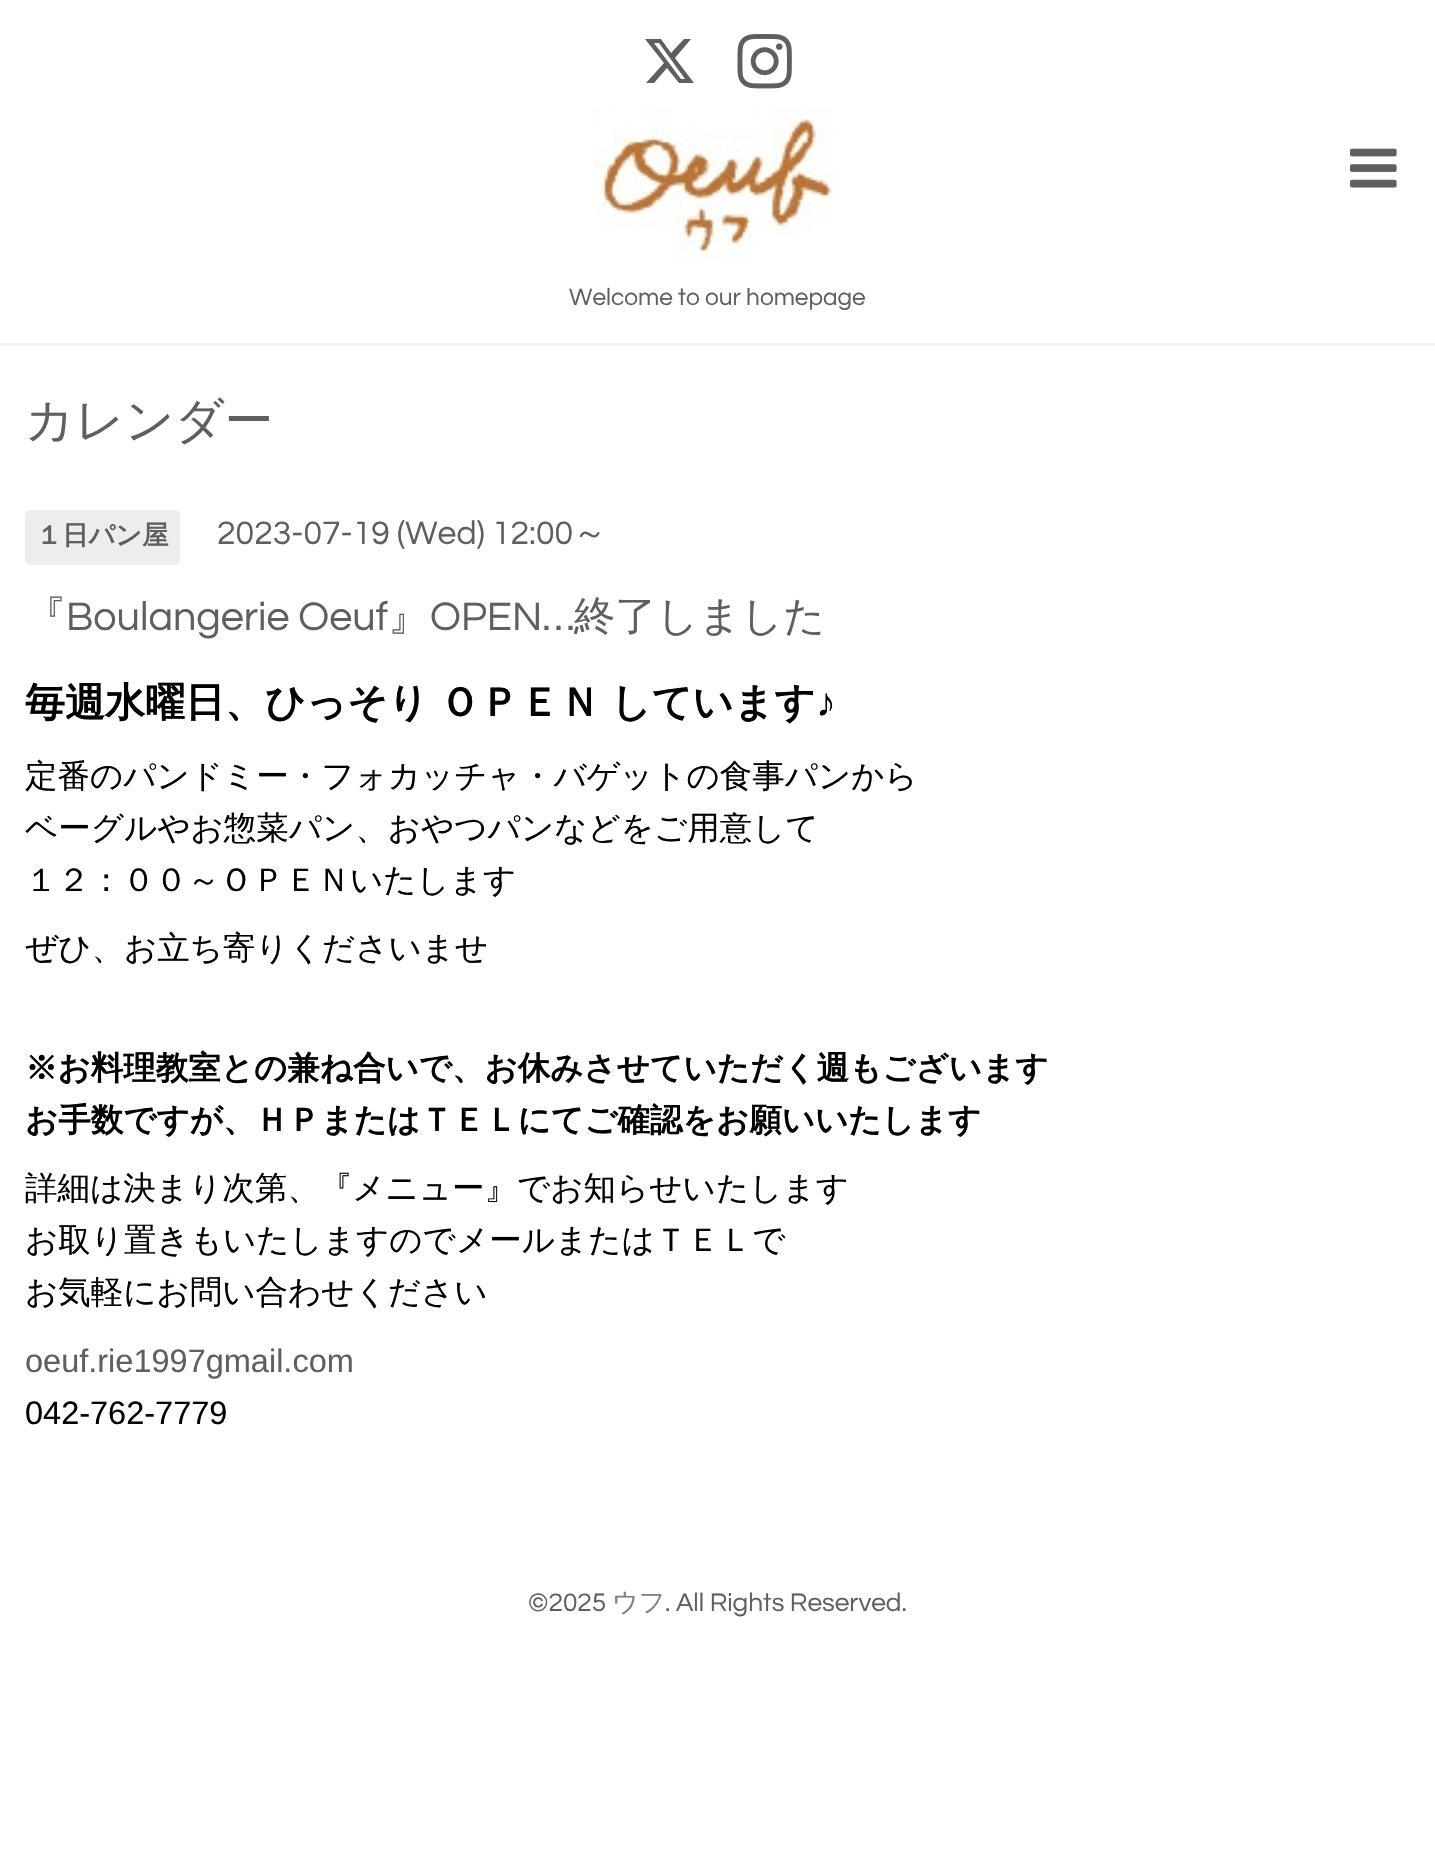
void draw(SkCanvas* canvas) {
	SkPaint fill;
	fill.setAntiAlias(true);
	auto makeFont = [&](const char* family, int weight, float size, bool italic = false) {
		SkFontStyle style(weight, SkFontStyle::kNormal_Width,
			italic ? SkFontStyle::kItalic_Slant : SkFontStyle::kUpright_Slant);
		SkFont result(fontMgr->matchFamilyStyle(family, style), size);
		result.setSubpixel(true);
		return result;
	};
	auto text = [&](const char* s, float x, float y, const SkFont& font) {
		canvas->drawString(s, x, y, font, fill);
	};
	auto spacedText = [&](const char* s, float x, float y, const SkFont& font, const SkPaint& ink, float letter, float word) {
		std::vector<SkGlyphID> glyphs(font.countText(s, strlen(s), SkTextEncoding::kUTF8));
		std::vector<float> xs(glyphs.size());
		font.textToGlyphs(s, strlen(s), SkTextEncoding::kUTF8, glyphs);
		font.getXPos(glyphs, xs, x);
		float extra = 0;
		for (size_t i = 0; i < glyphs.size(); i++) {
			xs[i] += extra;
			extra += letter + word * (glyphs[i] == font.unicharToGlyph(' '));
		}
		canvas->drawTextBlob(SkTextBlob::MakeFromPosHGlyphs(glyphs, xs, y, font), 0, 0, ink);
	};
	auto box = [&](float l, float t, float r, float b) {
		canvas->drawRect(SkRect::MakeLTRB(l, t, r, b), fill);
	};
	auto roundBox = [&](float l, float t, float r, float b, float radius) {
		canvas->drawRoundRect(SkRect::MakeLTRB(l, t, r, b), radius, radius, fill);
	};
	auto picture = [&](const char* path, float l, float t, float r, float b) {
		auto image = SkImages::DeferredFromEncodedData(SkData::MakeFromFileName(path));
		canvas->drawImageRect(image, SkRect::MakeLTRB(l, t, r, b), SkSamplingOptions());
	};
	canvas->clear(0xFFFFFFFF);
	fill.setColor(0xFFF2F2F2);
	box(0, 343, 1435, 346);
	fill.setColor(0xFF5F5F5F);
	canvas->drawPath(SkPathBuilder().moveTo(684, 39).lineTo(691, 39).lineTo(675, 58).lineTo(694, 83).lineTo(679, 83).lineTo(667, 68).lineTo(654, 83).lineTo(646, 83).lineTo(664, 63).lineTo(645, 39).lineTo(661, 39).lineTo(671, 53).close().moveTo(681, 79).lineTo(685, 79).lineTo(659, 43).lineTo(654, 43).close().detach(), fill);
	picture("image0.png", 737, 34, 792, 89);
	picture("image1.png", 1350, 148, 1397, 188);
	picture("image2.png", 592, 107, 834, 263);
	fill.setColor(0xFFEDEDED);
	roundBox(25, 510, 180, 565, 5);
	auto font1 = makeFont("Questrial", 400, 24.4f);
	fill.setColor(0xFF5F5F5F);
	text("Welcome to our homepage", 569, 305, font1);
	auto font2 = makeFont("WenQuanYi Zen Hei", 500, 48.75f);
	text("カレンダー", 25, 437, font2);
	auto font3 = makeFont("WenQuanYi Zen Hei", 700, 26.25f);
	text("１日パン屋", 36, 544, font3);
	auto font4 = makeFont("Questrial", 400, 33.75f);
	text("2023-07-19 (Wed) 12:00", 217, 544, font4);
	auto font5 = makeFont("WenQuanYi Zen Hei", 500, 33.75f);
	text("～", 573, 544, font5);
	auto font6 = makeFont("WenQuanYi Zen Hei", 500, 41.25f);
	text("『", 25, 630, font6);
	auto font7 = makeFont("Questrial", 400, 41.25f);
	text("Boulangerie Oeuf", 66, 630, font7);
	text("』", 388, 630, font6);
	text("OPEN…", 430, 630, font7);
	text("終了しました", 574, 630, font6);
	auto font8 = makeFont("WenQuanYi Zen Hei", 700, 40);
	fill.setColor(0xFF000000);
	spacedText("毎週水曜日、ひっそり ＯＰＥＮ しています", 25, 716, font8, fill, 0, -1);
	auto font9 = makeFont("Liberation Sans", 700, 40);
	text("♪", 816, 716, font9);
	auto font10 = makeFont("WenQuanYi Zen Hei", 500, 32.5f);
	text("定番のパンドミー・フォカッチャ・バゲットの食事パンから", 25, 787, font10);
	text("ベーグルやお惣菜パン、おやつパンなどをご用意して", 25, 839, font10);
	text("１２：００～ＯＰＥＮいたします", 25, 891, font10);
	text("ぜひ、お立ち寄りくださいませ", 25, 959, font10);
	auto font11 = makeFont("WenQuanYi Zen Hei", 700, 32.5f);
	text("※お料理教室との兼ね合いで、お休みさせていただく週もございます", 25, 1079, font11);
	text("お手数ですが、ＨＰまたはＴＥＬにてご確認をお願いいたします", 25, 1131, font11);
	text("詳細は決まり次第、『メニュー』でお知らせいたします", 25, 1199, font10);
	text("お取り置きもいたしますのでメールまたはＴＥＬで", 25, 1251, font10);
	text("お気軽にお問い合わせください", 25, 1303, font10);
	auto font12 = makeFont("Liberation Sans", 400, 32.5f);
	fill.setColor(0xFF5F5F5F);
	text("oeuf.rie1997gmail.com", 25, 1372, font12);
	fill.setColor(0xFF000000);
	text("042-762-7779", 25, 1424, font12);
	auto font13 = makeFont("Questrial", 400, 26.25f);
	fill.setColor(0xFF5F5F5F);
	text("©2025", 528, 1611, font13);
	auto font14 = makeFont("WenQuanYi Zen Hei", 500, 26.25f);
	fill.setColor(0xFF7F7F7F);
	text("ウフ", 612, 1611, font14);
	fill.setColor(0xFF5F5F5F);
	text(". All Rights Reserved.", 665, 1611, font13);
}
